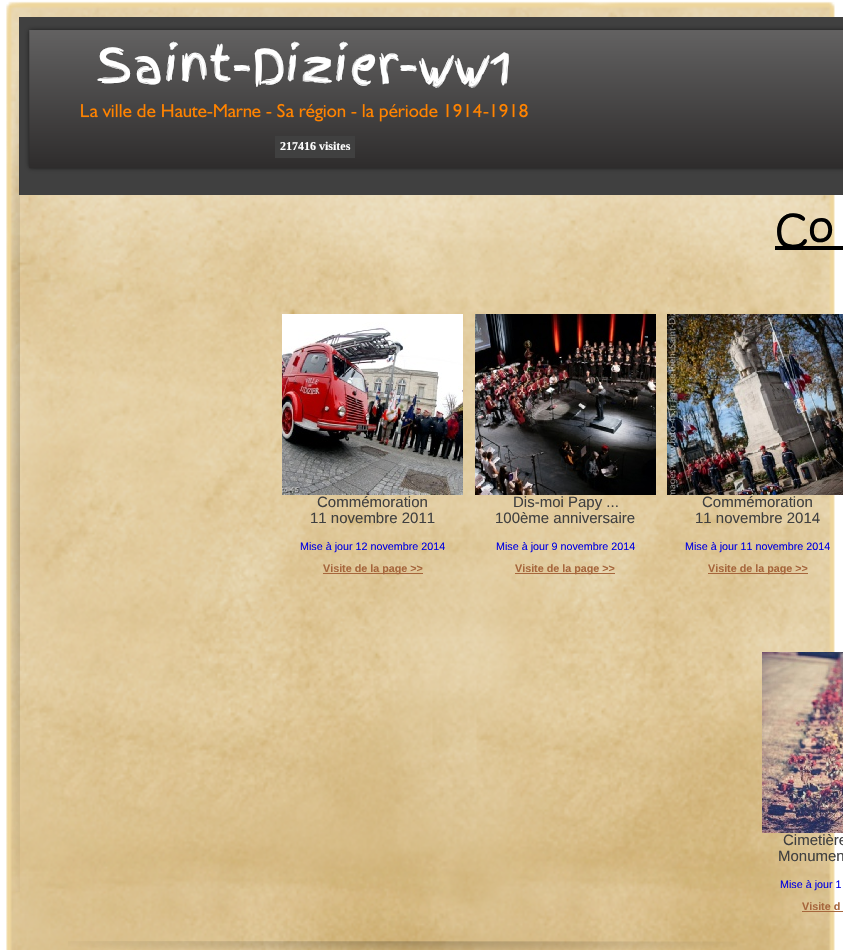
void draw(SkCanvas* canvas) {
	SkPaint fill;
	fill.setAntiAlias(true);
	auto makeFont = [&](const char* family, int weight, float size, bool italic = false) {
		SkFontStyle style(weight, SkFontStyle::kNormal_Width,
			italic ? SkFontStyle::kItalic_Slant : SkFontStyle::kUpright_Slant);
		SkFont result(fontMgr->matchFamilyStyle(family, style), size);
		result.setSubpixel(true);
		return result;
	};
	auto text = [&](const char* s, float x, float y, const SkFont& font) {
		canvas->drawString(s, x, y, font, fill);
	};
	auto box = [&](float l, float t, float r, float b) {
		canvas->drawRect(SkRect::MakeLTRB(l, t, r, b), fill);
	};
	auto picture = [&](const char* path, float l, float t, float r, float b) {
		auto image = SkImages::DeferredFromEncodedData(SkData::MakeFromFileName(path));
		canvas->drawImageRect(image, SkRect::MakeLTRB(l, t, r, b), SkSamplingOptions());
	};
	canvas->clear(0xFFFFFFFF);
	picture("image0.png", 6, 1, 835, 950);
	picture("image1.png", 19, 17, 843, 195);
	picture("image2.png", 10, 71, 20, 892);
	fill.setColor(0xFF404040);
	box(275, 136, 355, 158);
	fill.setColor(0xFF000000);
	box(775, 246, 843, 250);
	picture("image3.png", 282, 314, 463, 495);
	picture("image4.png", 475, 314, 656, 495);
	picture("image5.png", 667, 314, 843, 495);
	fill.setColor(0xFFA6663C);
	box(323, 573, 423, 574);
	box(515, 573, 615, 574);
	box(708, 573, 808, 574);
	picture("image6.png", 762, 652, 843, 833);
	box(802, 911, 843, 912);
	picture("image7.png", 68, 941, 737, 950);
	auto font1 = makeFont("Finger Paint", 400, 48);
	fill.setColor(0xFFFFFFFF);
	text("Saint-Dizier-ww1", 97, 83, font1);
	auto font2 = makeFont("Liberation Serif", 700, 12);
	text("217416 visites", 280, 150, font2);
	auto font3 = makeFont("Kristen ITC", 400, 40);
	fill.setColor(0xFF000000);
	text("Co", 775, 244, font3);
	auto font4 = makeFont("Liberation Sans", 400, 15);
	fill.setColor(0xFF404040);
	text("Commémoration", 317, 507, font4);
	text("11 novembre 2011", 310, 523, font4);
	text("Dis-moi Papy ...", 513, 507, font4);
	text("100ème anniversaire", 495, 523, font4);
	text("Commémoration", 702, 507, font4);
	text("11 novembre 2014", 695, 523, font4);
	auto font5 = makeFont("Liberation Sans", 400, 10.75f);
	fill.setColor(0xFF0000E2);
	text("Mise à jour 12 novembre 2014", 300, 550, font5);
	text("Mise à jour 9 novembre 2014", 496, 550, font5);
	text("Mise à jour 11 novembre 2014", 685, 550, font5);
	auto font6 = makeFont("Liberation Sans", 700, 10.75f);
	fill.setColor(0xFFA6663C);
	text("Visite de la page >>", 323, 572, font6);
	text("Visite de la page >>", 515, 572, font6);
	text("Visite de la page >>", 708, 572, font6);
	fill.setColor(0xFF404040);
	text("Cimetière", 783, 845, font4);
	text("Monumen", 778, 861, font4);
	fill.setColor(0xFF0000E2);
	text("Mise à jour 1", 780, 888, font5);
	fill.setColor(0xFFA6663C);
	text("Visite d", 802, 910, font6);
}
